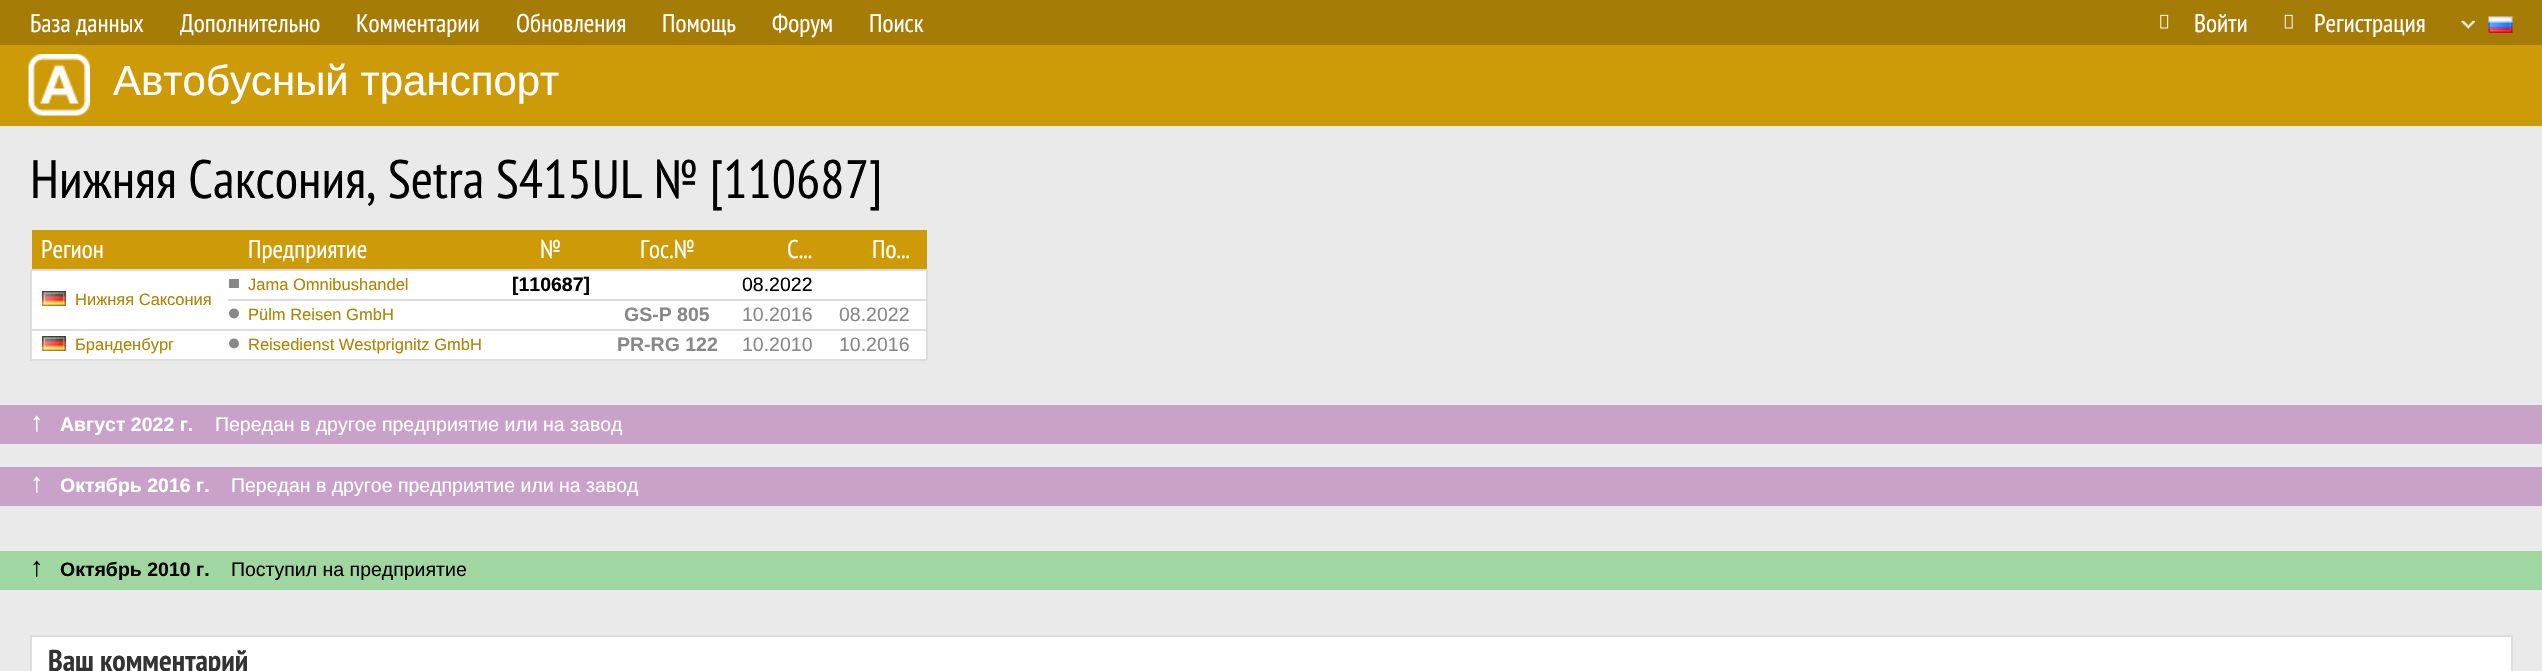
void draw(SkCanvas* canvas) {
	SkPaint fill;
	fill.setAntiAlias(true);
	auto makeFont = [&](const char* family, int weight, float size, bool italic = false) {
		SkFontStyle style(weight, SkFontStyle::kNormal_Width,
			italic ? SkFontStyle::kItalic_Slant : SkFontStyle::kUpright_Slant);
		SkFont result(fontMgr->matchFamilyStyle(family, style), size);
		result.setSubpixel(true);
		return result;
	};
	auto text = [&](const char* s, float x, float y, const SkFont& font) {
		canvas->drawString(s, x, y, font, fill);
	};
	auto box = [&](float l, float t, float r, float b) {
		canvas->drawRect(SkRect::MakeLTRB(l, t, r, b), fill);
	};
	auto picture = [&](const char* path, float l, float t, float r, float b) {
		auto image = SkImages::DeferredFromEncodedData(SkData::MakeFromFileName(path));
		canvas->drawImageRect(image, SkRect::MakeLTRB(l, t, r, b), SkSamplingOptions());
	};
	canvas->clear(0xFFA47C06);
	picture("image0.png", 2160, 14, 2169, 29);
	picture("image1.png", 2284, 14, 2293, 29);
	picture("image2.png", 2461, 20, 2475, 29);
	picture("image3.png", 2488, 16, 2513, 33);
	fill.setColor(0xFFCD9B08);
	box(0, 45, 2542, 126);
	picture("image4.png", 28, 54, 90, 116);
	fill.setColor(0xFFEAEAEA);
	box(0, 126, 2542, 671);
	fill.setColor(0xFFCD9B08);
	box(32, 230, 927, 269);
	fill.setColor(0xFFFFFFFF);
	box(32, 271, 926, 359);
	fill.setColor(0xFFDDDDDD);
	box(30, 269, 927, 271);
	box(926, 269, 928, 360);
	box(30, 359, 927, 361);
	box(30, 269, 32, 360);
	fill.setColor(0xFF888888);
	box(229, 279, 239, 288);
	picture("image5.png", 42, 291, 66, 306);
	fill.setColor(0xFFDDDDDD);
	box(228, 299, 927, 301);
	fill.setColor(0xFF888888);
	canvas->drawCircle(234, 313.5f, 5, fill);
	fill.setColor(0xFFDDDDDD);
	box(30, 329, 927, 331);
	picture("image6.png", 42, 336, 66, 351);
	fill.setColor(0xFF888888);
	canvas->drawCircle(234, 343.5f, 5, fill);
	fill.setColor(0xFFC8A2C8);
	box(0, 405, 2542, 444);
	box(0, 467, 2542, 506);
	fill.setColor(0xFFA0D6A0);
	box(0, 551, 2542, 590);
	fill.setColor(0xFFFFFFFF);
	canvas->drawRect(SkRect::MakeLTRB(31, 636, 2512, 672), fill);
	fill.setStyle(SkPaint::kStroke_Style);
	fill.setStrokeWidth(2);
	fill.setColor(0xFFDDDDDD);
	canvas->drawRect(SkRect::MakeLTRB(31, 636, 2512, 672), fill);
	auto font1 = makeFont("PT Sans Narrow", 400, 25.5f);
	fill.setStyle(SkPaint::kFill_Style);
	fill.setColor(0xFFFFFFFF);
	text("База данных", 30, 32, font1);
	text("Дополнительно", 180, 32, font1);
	text("Комментарии", 356, 32, font1);
	text("Обновления", 516, 32, font1);
	text("Помощь", 662, 32, font1);
	text("Форум", 772, 32, font1);
	text("Поиск", 869, 32, font1);
	text("Войти", 2194, 32, font1);
	text("Регистрация", 2314, 32, font1);
	auto font2 = makeFont("Liberation Sans", 400, 42);
	text("Автобусный транспорт", 113, 95, font2);
	auto font3 = makeFont("PT Sans Narrow", 400, 54);
	fill.setColor(0xFF000000);
	text("Нижняя Саксония, Setra S415UL № [110687]", 30, 198, font3);
	fill.setColor(0xFFFFFFFF);
	text("Регион", 41, 258, font1);
	text("Предприятие", 248, 258, font1);
	text("№", 540, 258, font1);
	text("Гос.№", 640, 258, font1);
	text("С...", 787, 258, font1);
	text("По...", 872, 258, font1);
	auto font4 = makeFont("Liberation Sans", 400, 16.5f);
	fill.setColor(0xFFB08300);
	text("Jama Omnibushandel", 248, 290, font4);
	auto font5 = makeFont("Liberation Sans", 700, 19.5f);
	fill.setColor(0xFF000000);
	text("[110687]", 512, 291, font5);
	auto font6 = makeFont("Liberation Sans", 400, 19.5f);
	text("08.2022", 742, 291, font6);
	fill.setColor(0xFFB08300);
	text("Нижняя Саксония", 75, 305, font4);
	text("Pülm Reisen GmbH", 248, 320, font4);
	fill.setColor(0xFF888888);
	text("GS-P 805", 624, 321, font5);
	text("10.2016", 742, 321, font6);
	text("08.2022", 839, 321, font6);
	fill.setColor(0xFFB08300);
	text("Бранденбург", 75, 350, font4);
	text("Reisedienst Westprignitz GmbH", 248, 350, font4);
	fill.setColor(0xFF888888);
	text("PR-RG 122", 617, 351, font5);
	text("10.2010", 742, 351, font6);
	text("10.2016", 839, 351, font6);
	auto font7 = makeFont("Liberation Sans", 400, 27);
	fill.setColor(0xFFFFFFFF);
	text("↑", 30, 431, font7);
	text("Август 2022 г.", 60, 431, font5);
	text("Передан в другое предприятие или на завод", 215, 431, font6);
	text("↑", 30, 492, font7);
	text("Октябрь 2016 г.", 60, 492, font5);
	text("Передан в другое предприятие или на завод", 231, 492, font6);
	fill.setColor(0xFF000000);
	text("↑", 30, 576, font7);
	text("Октябрь 2010 г.", 60, 576, font5);
	text("Поступил на предприятие", 231, 576, font6);
	auto font8 = makeFont("PT Sans Narrow", 700, 30);
	fill.setColor(0xFF333333);
	text("Ваш комментарий", 48, 671, font8);
}
